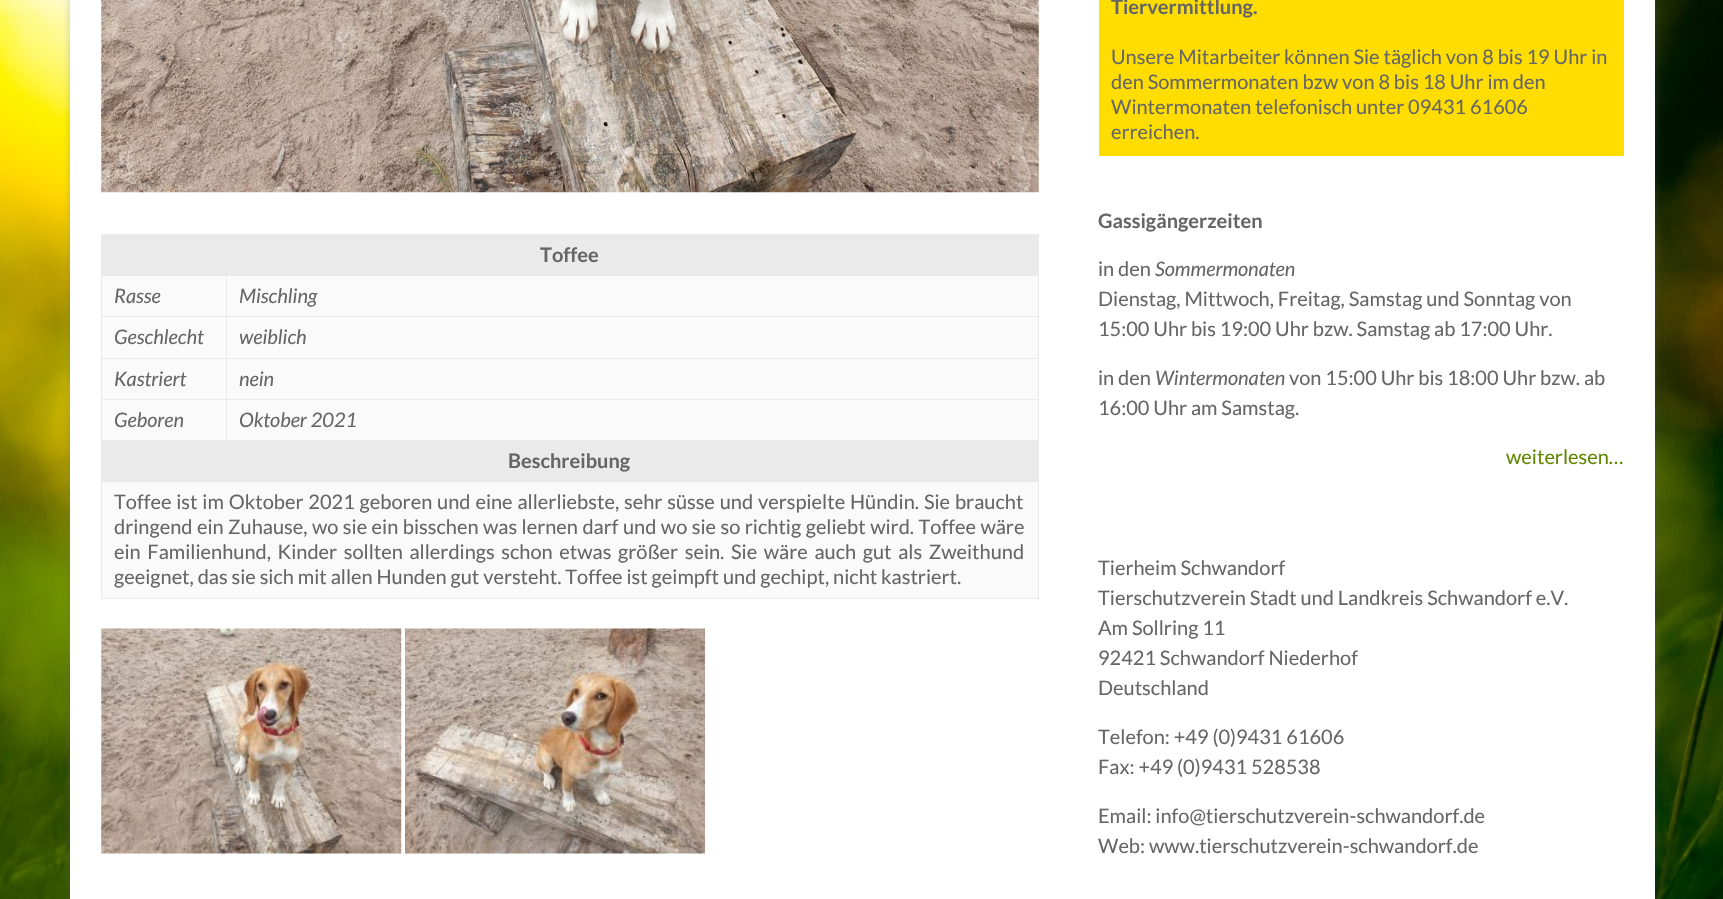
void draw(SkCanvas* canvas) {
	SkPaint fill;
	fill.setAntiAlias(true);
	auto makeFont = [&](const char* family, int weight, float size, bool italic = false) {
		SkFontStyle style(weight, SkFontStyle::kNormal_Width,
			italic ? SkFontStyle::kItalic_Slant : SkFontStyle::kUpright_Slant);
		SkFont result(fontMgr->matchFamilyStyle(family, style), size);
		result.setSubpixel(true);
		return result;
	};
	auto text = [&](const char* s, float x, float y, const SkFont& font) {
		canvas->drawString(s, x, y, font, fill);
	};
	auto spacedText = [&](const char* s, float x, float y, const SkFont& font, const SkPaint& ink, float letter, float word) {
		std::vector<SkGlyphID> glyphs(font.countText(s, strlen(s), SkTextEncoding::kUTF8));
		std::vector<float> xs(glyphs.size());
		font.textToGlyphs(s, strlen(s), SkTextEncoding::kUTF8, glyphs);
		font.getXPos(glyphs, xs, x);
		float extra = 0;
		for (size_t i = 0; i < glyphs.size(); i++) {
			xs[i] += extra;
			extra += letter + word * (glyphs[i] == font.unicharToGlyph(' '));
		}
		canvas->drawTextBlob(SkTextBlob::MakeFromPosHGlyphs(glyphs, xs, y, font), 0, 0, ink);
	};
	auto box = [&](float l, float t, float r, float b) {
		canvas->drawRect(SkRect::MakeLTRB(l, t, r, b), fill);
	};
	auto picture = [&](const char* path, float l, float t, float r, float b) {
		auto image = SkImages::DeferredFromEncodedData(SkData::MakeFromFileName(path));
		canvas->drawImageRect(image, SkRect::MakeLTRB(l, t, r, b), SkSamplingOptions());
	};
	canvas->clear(0xFFFFFFFF);
	picture("image0.png", 0, 0, 1723, 899);
	fill.setColor(0x4D646464);
	fill.setMaskFilter(SkMaskFilter::MakeBlur(kNormal_SkBlurStyle, 4));
	canvas->drawRect(SkRect::MakeLTRB(70, -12, 1655, 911), fill);
	fill.setMaskFilter(nullptr);
	fill.setColor(0xFFFFFFFF);
	box(70, 0, 1655, 899);
	picture("image1.png", 101, 0, 1039, 193);
	fill.setColor(0xFFFAFAFA);
	box(102, 276, 1038, 598);
	fill.setColor(0xFFEAEAEA);
	box(101, 235, 1038, 275);
	box(101, 234, 1039, 235);
	box(226, 275, 1039, 276);
	box(226, 316, 1039, 317);
	box(226, 358, 1039, 359);
	box(226, 399, 1039, 400);
	box(101, 440, 1039, 441);
	box(101, 481, 1039, 482);
	box(1038, 481, 1039, 599);
	box(1038, 440, 1039, 483);
	box(1038, 399, 1039, 441);
	box(1038, 358, 1039, 400);
	box(1038, 316, 1039, 359);
	box(1038, 275, 1039, 318);
	box(1038, 234, 1039, 276);
	box(226, 399, 227, 441);
	box(101, 399, 228, 400);
	box(226, 358, 227, 400);
	box(101, 358, 228, 359);
	box(226, 316, 227, 359);
	box(101, 316, 228, 317);
	box(226, 275, 227, 318);
	box(101, 275, 228, 276);
	box(101, 399, 102, 441);
	box(101, 358, 102, 400);
	box(101, 316, 102, 359);
	box(101, 275, 102, 318);
	box(101, 441, 1038, 481);
	box(101, 598, 1039, 599);
	box(101, 481, 102, 599);
	picture("image2.png", 101, 628, 402, 854);
	picture("image3.png", 405, 628, 705, 854);
	fill.setColor(0xFFFFDD00);
	box(1099, 0, 1624, 156);
	auto font1 = makeFont("Lato", 700, 20);
	fill.setColor(0xFF666666);
	text("Toffee", 540, 262, font1);
	auto font2 = makeFont("Lato", 400, 20, true);
	text("Rasse", 114, 303, font2);
	text("Mischling", 239, 303, font2);
	text("Geschlecht", 114, 344, font2);
	text("weiblich", 239, 344, font2);
	text("Kastriert", 114, 386, font2);
	text("nein", 239, 386, font2);
	text("Geboren", 114, 427, font2);
	text("Oktober 2021", 239, 427, font2);
	text("Beschreibung", 508, 468, font1);
	auto font3 = makeFont("Lato", 400, 20);
	spacedText("Toffee ist im Oktober 2021 geboren und eine allerliebste, sehr süsse und verspielte Hündin. Sie braucht", 114, 509, font3, fill, 0, 1);
	spacedText("dringend ein Zuhause, wo sie ein bisschen was lernen darf und wo sie so richtig geliebt wird. Toffee wäre", 114, 534, font3, fill, 0, 0.6f);
	spacedText("ein Familienhund, Kinder sollten allerdings schon etwas größer sein. Sie wäre auch gut als Zweithund", 114, 559, font3, fill, 0, 2.75f);
	text("geeignet, das sie sich mit allen Hunden gut versteht. Toffee ist geimpft und gechipt, nicht kastriert.", 114, 584, font3);
	text("Tiervermittlung.", 1111, 14, font1);
	text("Unsere Mitarbeiter können Sie täglich von 8 bis 19 Uhr in", 1111, 64, font3);
	text("den Sommermonaten bzw von 8 bis 18 Uhr im den", 1111, 89, font3);
	text("Wintermonaten telefonisch unter 09431 61606", 1111, 114, font3);
	text("erreichen.", 1111, 139, font3);
	text("Gassigängerzeiten", 1098, 228, font1);
	text("in den", 1098, 276, font3);
	text("Sommermonaten", 1155, 276, font2);
	text("Dienstag, Mittwoch, Freitag, Samstag und Sonntag von", 1098, 306, font3);
	text("15:00 Uhr bis 19:00 Uhr bzw. Samstag ab 17:00 Uhr.", 1098, 336, font3);
	text("in den", 1098, 385, font3);
	text("Wintermonaten", 1155, 385, font2);
	text("von 15:00 Uhr bis 18:00 Uhr bzw. ab", 1289, 385, font3);
	text("16:00 Uhr am Samstag.", 1098, 415, font3);
	fill.setColor(0xFF628701);
	text("weiterlesen…", 1506, 464, font3);
	fill.setColor(0xFF666666);
	text("Tierheim Schwandorf", 1098, 575, font3);
	text("Tierschutzverein Stadt und Landkreis Schwandorf e.V.", 1098, 605, font3);
	text("Am Sollring 11", 1098, 635, font3);
	text("92421 Schwandorf Niederhof", 1098, 665, font3);
	text("Deutschland", 1098, 695, font3);
	text("Telefon: +49 (0)9431 61606", 1098, 744, font3);
	text("Fax: +49 (0)9431 528538", 1098, 774, font3);
	text("Email: info@tierschutzverein-schwandorf.de", 1098, 823, font3);
	text("Web: www.tierschutzverein-schwandorf.de", 1098, 853, font3);
}
